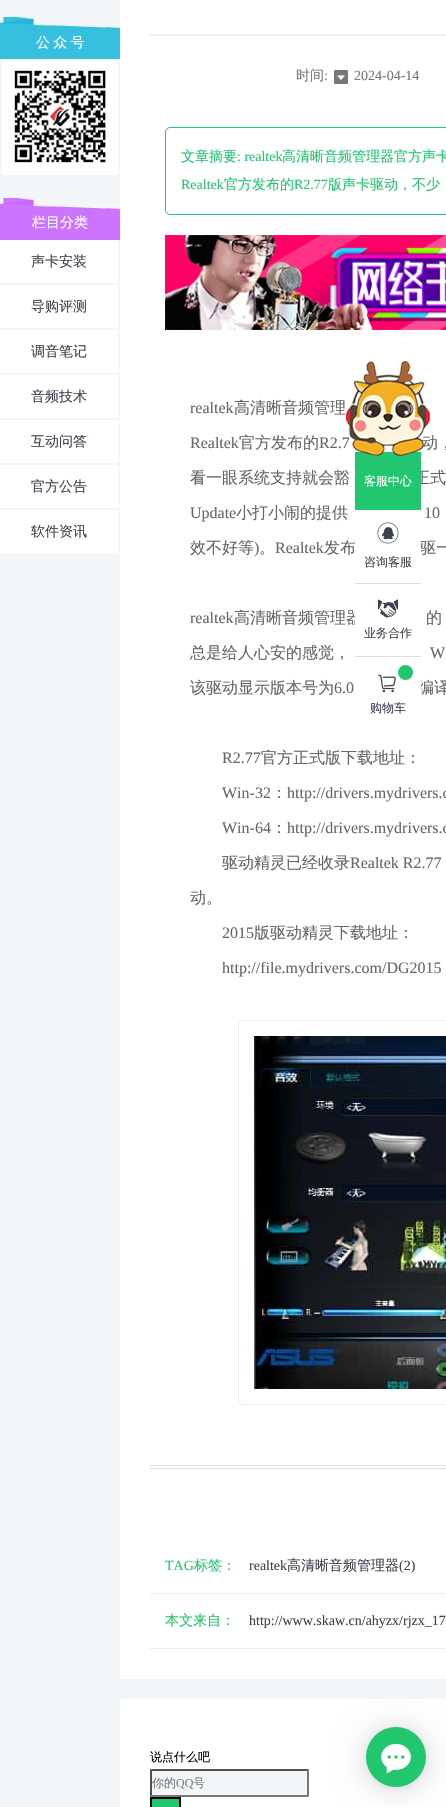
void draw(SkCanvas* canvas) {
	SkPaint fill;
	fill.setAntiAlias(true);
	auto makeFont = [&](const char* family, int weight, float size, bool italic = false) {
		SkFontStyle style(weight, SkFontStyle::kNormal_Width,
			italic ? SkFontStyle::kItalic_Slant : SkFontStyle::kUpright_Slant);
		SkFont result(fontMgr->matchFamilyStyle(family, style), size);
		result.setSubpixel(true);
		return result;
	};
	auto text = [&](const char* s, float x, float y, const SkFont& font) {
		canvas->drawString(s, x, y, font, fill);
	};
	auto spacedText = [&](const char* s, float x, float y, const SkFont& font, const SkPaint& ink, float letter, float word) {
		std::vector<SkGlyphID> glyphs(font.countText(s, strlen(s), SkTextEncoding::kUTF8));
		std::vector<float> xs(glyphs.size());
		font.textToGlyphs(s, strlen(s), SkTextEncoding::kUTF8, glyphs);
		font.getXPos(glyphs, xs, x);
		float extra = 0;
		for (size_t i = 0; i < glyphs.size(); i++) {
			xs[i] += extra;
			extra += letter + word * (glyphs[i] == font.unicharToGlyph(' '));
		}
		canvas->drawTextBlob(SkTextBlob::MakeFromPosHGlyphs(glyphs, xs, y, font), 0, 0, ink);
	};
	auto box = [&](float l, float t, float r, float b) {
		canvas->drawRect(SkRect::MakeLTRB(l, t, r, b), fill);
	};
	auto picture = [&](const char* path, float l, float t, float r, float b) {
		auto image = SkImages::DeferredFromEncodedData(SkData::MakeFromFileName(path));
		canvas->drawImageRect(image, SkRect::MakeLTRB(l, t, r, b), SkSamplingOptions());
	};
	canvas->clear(0xFFF3F6F8);
	picture("image0.png", 0, 17, 120, 175);
	picture("image1.png", 0, 198, 120, 240);
	fill.setColor(0xFFFFFFFF);
	box(0, 240, 118, 283);
	box(0, 285, 118, 328);
	box(0, 330, 118, 373);
	box(0, 375, 118, 418);
	box(0, 420, 118, 463);
	box(0, 465, 118, 508);
	box(0, 510, 118, 553);
	box(120, 0, 446, 1679);
	fill.setColor(0xFFEEEEEE);
	box(150, 34, 446, 36);
	picture("image2.png", 334, 70, 348, 84);
	fill.setStyle(SkPaint::kStroke_Style);
	fill.setStrokeWidth(1);
	fill.setColor(0xFF22C66E);
	canvas->drawRoundRect(SkRect::MakeLTRB(165.5f, 127.5f, 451.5f, 214.5f), 4.5f, 4.5f, fill);
	picture("image3.png", 165, 235, 446, 330);
	fill.setColor(0xFFEEEEEE);
	canvas->drawRoundRect(SkRect::MakeLTRB(238.5f, 1020.5f, 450.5f, 1404.5f), 3.5f, 3.5f, fill);
	picture("image4.png", 254, 1036, 446, 1389);
	fill.setStyle(SkPaint::kFill_Style);
	fill.setColor(0xFFDDDDDD);
	box(150, 1465, 446, 1466);
	box(150, 1468, 446, 1469);
	fill.setColor(0xFFEEEEEE);
	box(150, 1593, 446, 1594);
	box(150, 1648, 446, 1649);
	fill.setColor(0xFFFFFFFF);
	box(120, 1699, 446, 1807);
	fill.setColor(0xFFF3F6F8);
	box(150, 1769, 309, 1797);
	fill.setColor(0xFF4F4F4F);
	canvas->drawPath(SkPathBuilder().moveTo(150, 1769).lineTo(309, 1769).lineTo(307, 1771).lineTo(152, 1771).close().detach(), fill);
	fill.setColor(0xFF767676);
	canvas->drawPath(SkPathBuilder().moveTo(309, 1769).lineTo(309, 1797).lineTo(307, 1795).lineTo(307, 1771).close().detach(), fill);
	canvas->drawPath(SkPathBuilder().moveTo(309, 1797).lineTo(150, 1797).lineTo(152, 1795).lineTo(307, 1795).close().detach(), fill);
	fill.setColor(0xFF4F4F4F);
	canvas->drawPath(SkPathBuilder().moveTo(150, 1797).lineTo(150, 1769).lineTo(152, 1771).lineTo(152, 1795).close().detach(), fill);
	fill.setColor(0xFF22C66E);
	canvas->drawRect(SkRect::MakeLTRB(151, 1798, 180, 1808), fill);
	fill.setStyle(SkPaint::kStroke_Style);
	fill.setStrokeWidth(2);
	fill.setColor(0xFF000000);
	canvas->drawRect(SkRect::MakeLTRB(151, 1798, 180, 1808), fill);
	fill.setStyle(SkPaint::kFill_Style);
	fill.setColor(0x29000000);
	fill.setMaskFilter(SkMaskFilter::MakeBlur(kNormal_SkBlurStyle, 16));
	canvas->drawRoundRect(SkRect::MakeLTRB(366, 1729, 426, 1789), 30, 30, fill);
	fill.setMaskFilter(nullptr);
	fill.setColor(0x0F000000);
	fill.setMaskFilter(SkMaskFilter::MakeBlur(kNormal_SkBlurStyle, 3));
	canvas->drawRoundRect(SkRect::MakeLTRB(366, 1728, 426, 1788), 30, 30, fill);
	fill.setMaskFilter(nullptr);
	fill.setColor(0xFF22C66E);
	canvas->drawCircle(396, 1757, 30, fill);
	picture("image9.png", 381, 1743, 411, 1774);
	auto font1 = makeFont("WenQuanYi Zen Hei", 500, 14);
	fill.setColor(0xFFFFFFFF);
	spacedText("公 众 号", 36, 47, font1, fill, 0, -1);
	text("栏目分类", 32, 227, font1);
	fill.setColor(0xFF3D414D);
	text("声卡安装", 31, 266, font1);
	text("导购评测", 31, 311, font1);
	text("调音笔记", 31, 356, font1);
	text("音频技术", 31, 401, font1);
	text("互动问答", 31, 446, font1);
	text("官方公告", 31, 491, font1);
	text("软件资讯", 31, 536, font1);
	fill.setColor(0xFF777777);
	text("时间", 296, 80, font1);
	auto font2 = makeFont("Liberation Serif", 400, 14);
	text(":", 324, 80, font2);
	text("2024-04-14", 354, 80, font2);
	fill.setColor(0xFF22C66E);
	text("文章摘要", 181, 161, font1);
	text(": realtek", 237, 161, font2);
	text("高清晰音频管理器官方声卡", 282, 161, font1);
	text("Realtek", 181, 189, font2);
	text("官方发布的", 224, 189, font1);
	text("R2.77", 294, 189, font2);
	text("版声卡驱动，不少", 328, 189, font1);
	auto font3 = makeFont("Liberation Serif", 400, 16);
	fill.setColor(0xFF666666);
	text("realtek", 190, 413, font3);
	auto font4 = makeFont("WenQuanYi Zen Hei", 500, 16);
	text("高清晰音频管理", 234, 413, font4);
	text("Realtek", 190, 448, font3);
	text("官方发布的", 239, 448, font4);
	text("R2.7", 319, 448, font3);
	text("动，", 422, 448, font4);
	text("看一眼系统支持就会豁", 190, 483, font4);
	text("正式", 414, 483, font4);
	text("Update", 190, 518, font3);
	text("小打小闹的提供", 236, 518, font4);
	text("10", 424, 518, font3);
	text("效不好等", 190, 553, font4);
	text(")", 254, 553, font3);
	text("。", 259, 553, font4);
	text("Realtek", 275, 553, font3);
	text("发布", 324, 553, font4);
	text("驱一", 420, 553, font4);
	text("realtek", 190, 623, font3);
	text("高清晰音频管理器", 234, 623, font4);
	text("的", 426, 623, font4);
	text("总是给人心安的感觉，", 190, 658, font4);
	text("W", 430, 658, font3);
	text("该驱动显示版本号为", 190, 693, font4);
	text("6.0", 334, 693, font3);
	text("编译", 418, 693, font4);
	text("R2.77", 222, 763, font3);
	text("官方正式版下载地址：", 261, 763, font4);
	text("Win-32", 222, 798, font3);
	text("：", 271, 798, font4);
	text("http://drivers.mydrivers.c", 287, 798, font3);
	text("Win-64", 222, 833, font3);
	text("：", 271, 833, font4);
	text("http://drivers.mydrivers.c", 287, 833, font3);
	text("驱动精灵已经收录", 222, 868, font4);
	text("Realtek R2.77", 350, 868, font3);
	text("动。", 190, 903, font4);
	text("2015", 222, 938, font3);
	text("版驱动精灵下载地址：", 254, 938, font4);
	text("http://file.mydrivers.com/DG2015", 222, 973, font3);
	fill.setColor(0xFF22C66E);
	text("TAG", 165, 1570, font2);
	text("标签：", 194, 1570, font1);
	fill.setColor(0xFF3D414D);
	text("realtek", 249, 1570, font2);
	text("高清晰音频管理器", 287, 1570, font1);
	text("(2)", 399, 1570, font2);
	fill.setColor(0xFF22C66E);
	text("本文来自：", 165, 1625, font1);
	fill.setColor(0xFF3D414D);
	text("http://www.skaw.cn/ahyzx/rjzx_17", 249, 1625, font2);
	auto font5 = makeFont("WenQuanYi Zen Hei", 500, 12);
	fill.setColor(0xFF000000);
	text("说点什么吧", 150, 1761, font5);
	fill.setColor(0xFF777777);
	text("你的", 152, 1787, font5);
	auto font6 = makeFont("Liberation Serif", 400, 12);
	text("QQ", 176, 1787, font6);
	text("号", 193, 1787, font5);
	fill.setColor(0xFFFFFFFF);
	canvas->drawPath(SkPathBuilder().moveTo(355, 452).lineTo(421, 452).lineTo(421, 727).cubicTo(421, 730, 419, 732, 416, 732).lineTo(360, 732).cubicTo(357, 732, 355, 730, 355, 727).close().detach(), fill);
	fill.setColor(0xFF22C66E);
	box(355, 452, 421, 510);
	picture("image5.png", 346, 361, 430, 456);
	fill.setColor(0xFFFFFFFF);
	text("客服中心", 364, 485, font5);
	fill.setColor(0xFFDDDDDD);
	box(355, 583, 421, 584);
	picture("image6.png", 377, 522, 399, 544);
	fill.setColor(0xFF3D414D);
	text("咨询客服", 364, 566, font5);
	fill.setColor(0xFFDDDDDD);
	box(355, 656, 421, 657);
	picture("image7.png", 378, 599, 398, 618);
	fill.setColor(0xFF3D414D);
	text("业务合作", 364, 637, font5);
	fill.setColor(0xFF22C66E);
	canvas->drawCircle(405.5f, 672.5f, 7.5f, fill);
	picture("image8.png", 378, 674, 396, 693);
	fill.setColor(0xFF3D414D);
	text("购物车", 370, 712, font5);
}
